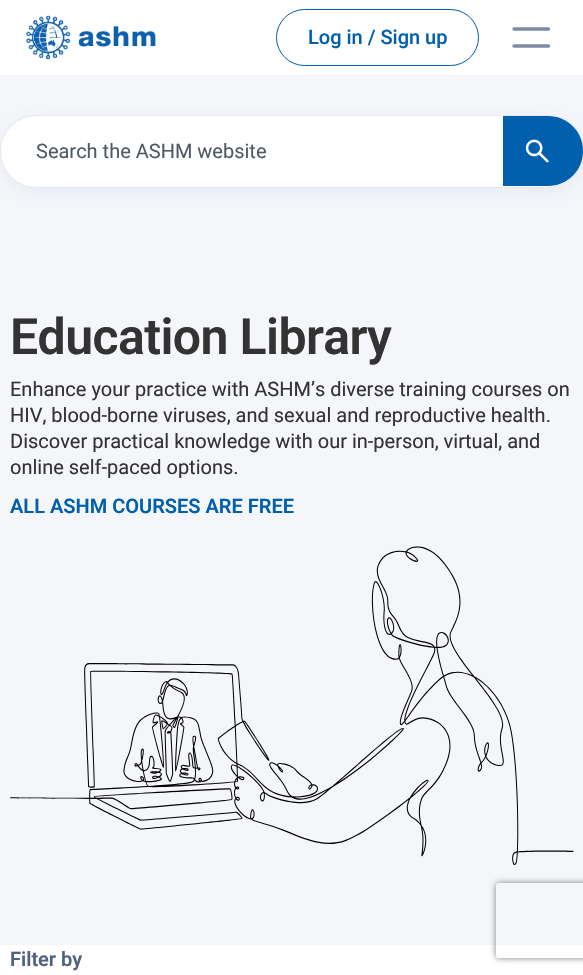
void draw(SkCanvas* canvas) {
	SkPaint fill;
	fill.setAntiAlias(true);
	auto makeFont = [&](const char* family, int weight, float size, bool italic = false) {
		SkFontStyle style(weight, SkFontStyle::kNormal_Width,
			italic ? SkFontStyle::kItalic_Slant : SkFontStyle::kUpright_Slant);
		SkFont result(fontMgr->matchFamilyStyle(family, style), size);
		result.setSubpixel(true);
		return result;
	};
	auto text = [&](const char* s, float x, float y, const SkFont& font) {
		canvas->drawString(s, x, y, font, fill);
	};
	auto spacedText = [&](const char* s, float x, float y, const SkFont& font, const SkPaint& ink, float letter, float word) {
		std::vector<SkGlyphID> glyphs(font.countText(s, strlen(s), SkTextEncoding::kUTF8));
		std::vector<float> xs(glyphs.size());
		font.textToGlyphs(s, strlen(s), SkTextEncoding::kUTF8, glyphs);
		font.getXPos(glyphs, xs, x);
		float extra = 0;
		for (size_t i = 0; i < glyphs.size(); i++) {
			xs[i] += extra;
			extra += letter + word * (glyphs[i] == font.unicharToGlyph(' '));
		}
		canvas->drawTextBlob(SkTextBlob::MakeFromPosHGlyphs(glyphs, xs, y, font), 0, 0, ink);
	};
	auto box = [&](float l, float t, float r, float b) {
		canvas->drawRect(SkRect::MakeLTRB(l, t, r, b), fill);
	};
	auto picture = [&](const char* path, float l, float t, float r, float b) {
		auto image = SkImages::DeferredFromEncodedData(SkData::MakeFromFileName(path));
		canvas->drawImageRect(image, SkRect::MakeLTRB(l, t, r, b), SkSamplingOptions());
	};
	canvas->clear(0xFFF5F6FA);
	fill.setColor(0xFFFFFFFF);
	box(0, 0, 583, 75);
	picture("image0.png", 25, 15, 156, 60);
	fill.setStyle(SkPaint::kStroke_Style);
	fill.setStrokeWidth(1);
	fill.setColor(0xFF0060AE);
	canvas->drawRoundRect(SkRect::MakeLTRB(276.5f, 9.5f, 478.5f, 65.5f), 28, 28, fill);
	fill.setStrokeWidth(3.4f);
	fill.setStrokeCap(SkPaint::kRound_Cap);
	fill.setStrokeJoin(SkPaint::kRound_Join);
	fill.setColor(0xFF7E8BA6);
	canvas->drawPath(SkPathBuilder().moveTo(514, 29).lineTo(548.5f, 29).moveTo(514, 46).lineTo(548.5f, 46).detach(), fill);
	fill.setStyle(SkPaint::kFill_Style);
	fill.setColor(0x1A476AB2);
	fill.setMaskFilter(SkMaskFilter::MakeBlur(kNormal_SkBlurStyle, 10));
	canvas->drawRoundRect(SkRect::MakeLTRB(3, 123, 581, 190), 33.5f, 33.5f, fill);
	fill.setMaskFilter(nullptr);
	fill.setColor(0xFFFFFFFF);
	canvas->drawRoundRect(SkRect::MakeLTRB(0.5f, 115.5f, 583.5f, 187.5f), 36, 36, fill);
	fill.setStyle(SkPaint::kStroke_Style);
	fill.setStrokeWidth(1);
	fill.setStrokeCap(SkPaint::kButt_Cap);
	fill.setStrokeJoin(SkPaint::kMiter_Join);
	fill.setColor(0xFFE6E9F0);
	canvas->drawRoundRect(SkRect::MakeLTRB(0.5f, 115.5f, 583.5f, 187.5f), 36, 36, fill);
	fill.setStyle(SkPaint::kFill_Style);
	fill.setColor(0xFF0060AE);
	canvas->drawPath(SkPathBuilder().moveTo(503, 116).lineTo(548, 116).cubicTo(567.5f, 116, 583, 131.5f, 583, 151).cubicTo(583, 170.5f, 567.5f, 186, 548, 186).lineTo(503, 186).close().detach(), fill);
	picture("image1.png", 525, 139, 549, 163);
	picture("image2.png", 10, 546, 574, 865);
	fill.setColor(0xFFFFFFFF);
	box(0, 945, 583, 975);
	canvas->save();
	canvas->clipPath(SkPathBuilder(SkPathFillType::kEvenOdd).moveTo(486, 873).lineTo(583, 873).lineTo(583, 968).lineTo(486, 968).close().moveTo(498.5f, 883).lineTo(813.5f, 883).cubicTo(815, 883, 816, 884, 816, 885.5f).lineTo(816, 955.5f).cubicTo(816, 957, 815, 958, 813.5f, 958).lineTo(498.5f, 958).cubicTo(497, 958, 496, 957, 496, 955.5f).lineTo(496, 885.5f).cubicTo(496, 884, 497, 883, 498.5f, 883).close().detach(), true);
	fill.setColor(0xFF808080);
	fill.setMaskFilter(SkMaskFilter::MakeBlur(kNormal_SkBlurStyle, 3));
	canvas->drawRoundRect(SkRect::MakeLTRB(496, 883, 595, 958), 2.5f, 2.5f, fill);
	fill.setMaskFilter(nullptr);
	canvas->restore();
	auto font1 = makeFont("Roboto", 500, 20);
	fill.setColor(0xFF0060AE);
	text("Log in / Sign up", 308, 44, font1);
	auto font2 = makeFont("Roboto", 400, 20);
	fill.setColor(0xFF515962);
	text("Search the ASHM website", 36, 158, font2);
	auto font3 = makeFont("Roboto", 600, 50);
	fill.setColor(0xFF333333);
	spacedText("Education Library", 10, 354, font3, fill, -0.6f, 0);
	text("Enhance your practice with ASHM’s diverse training courses on", 10, 396, font2);
	text("HIV, blood-borne viruses, and sexual and reproductive health.", 10, 422, font2);
	text("Discover practical knowledge with our in-person, virtual, and", 10, 448, font2);
	text("online self-paced options.", 10, 474, font2);
	auto font4 = makeFont("Roboto", 600, 20);
	fill.setColor(0xFF0060AE);
	text("ALL ASHM COURSES ARE FREE", 10, 513, font4);
	fill.setColor(0xFF536180);
	text("Filter by", 10, 966, font4);
}
